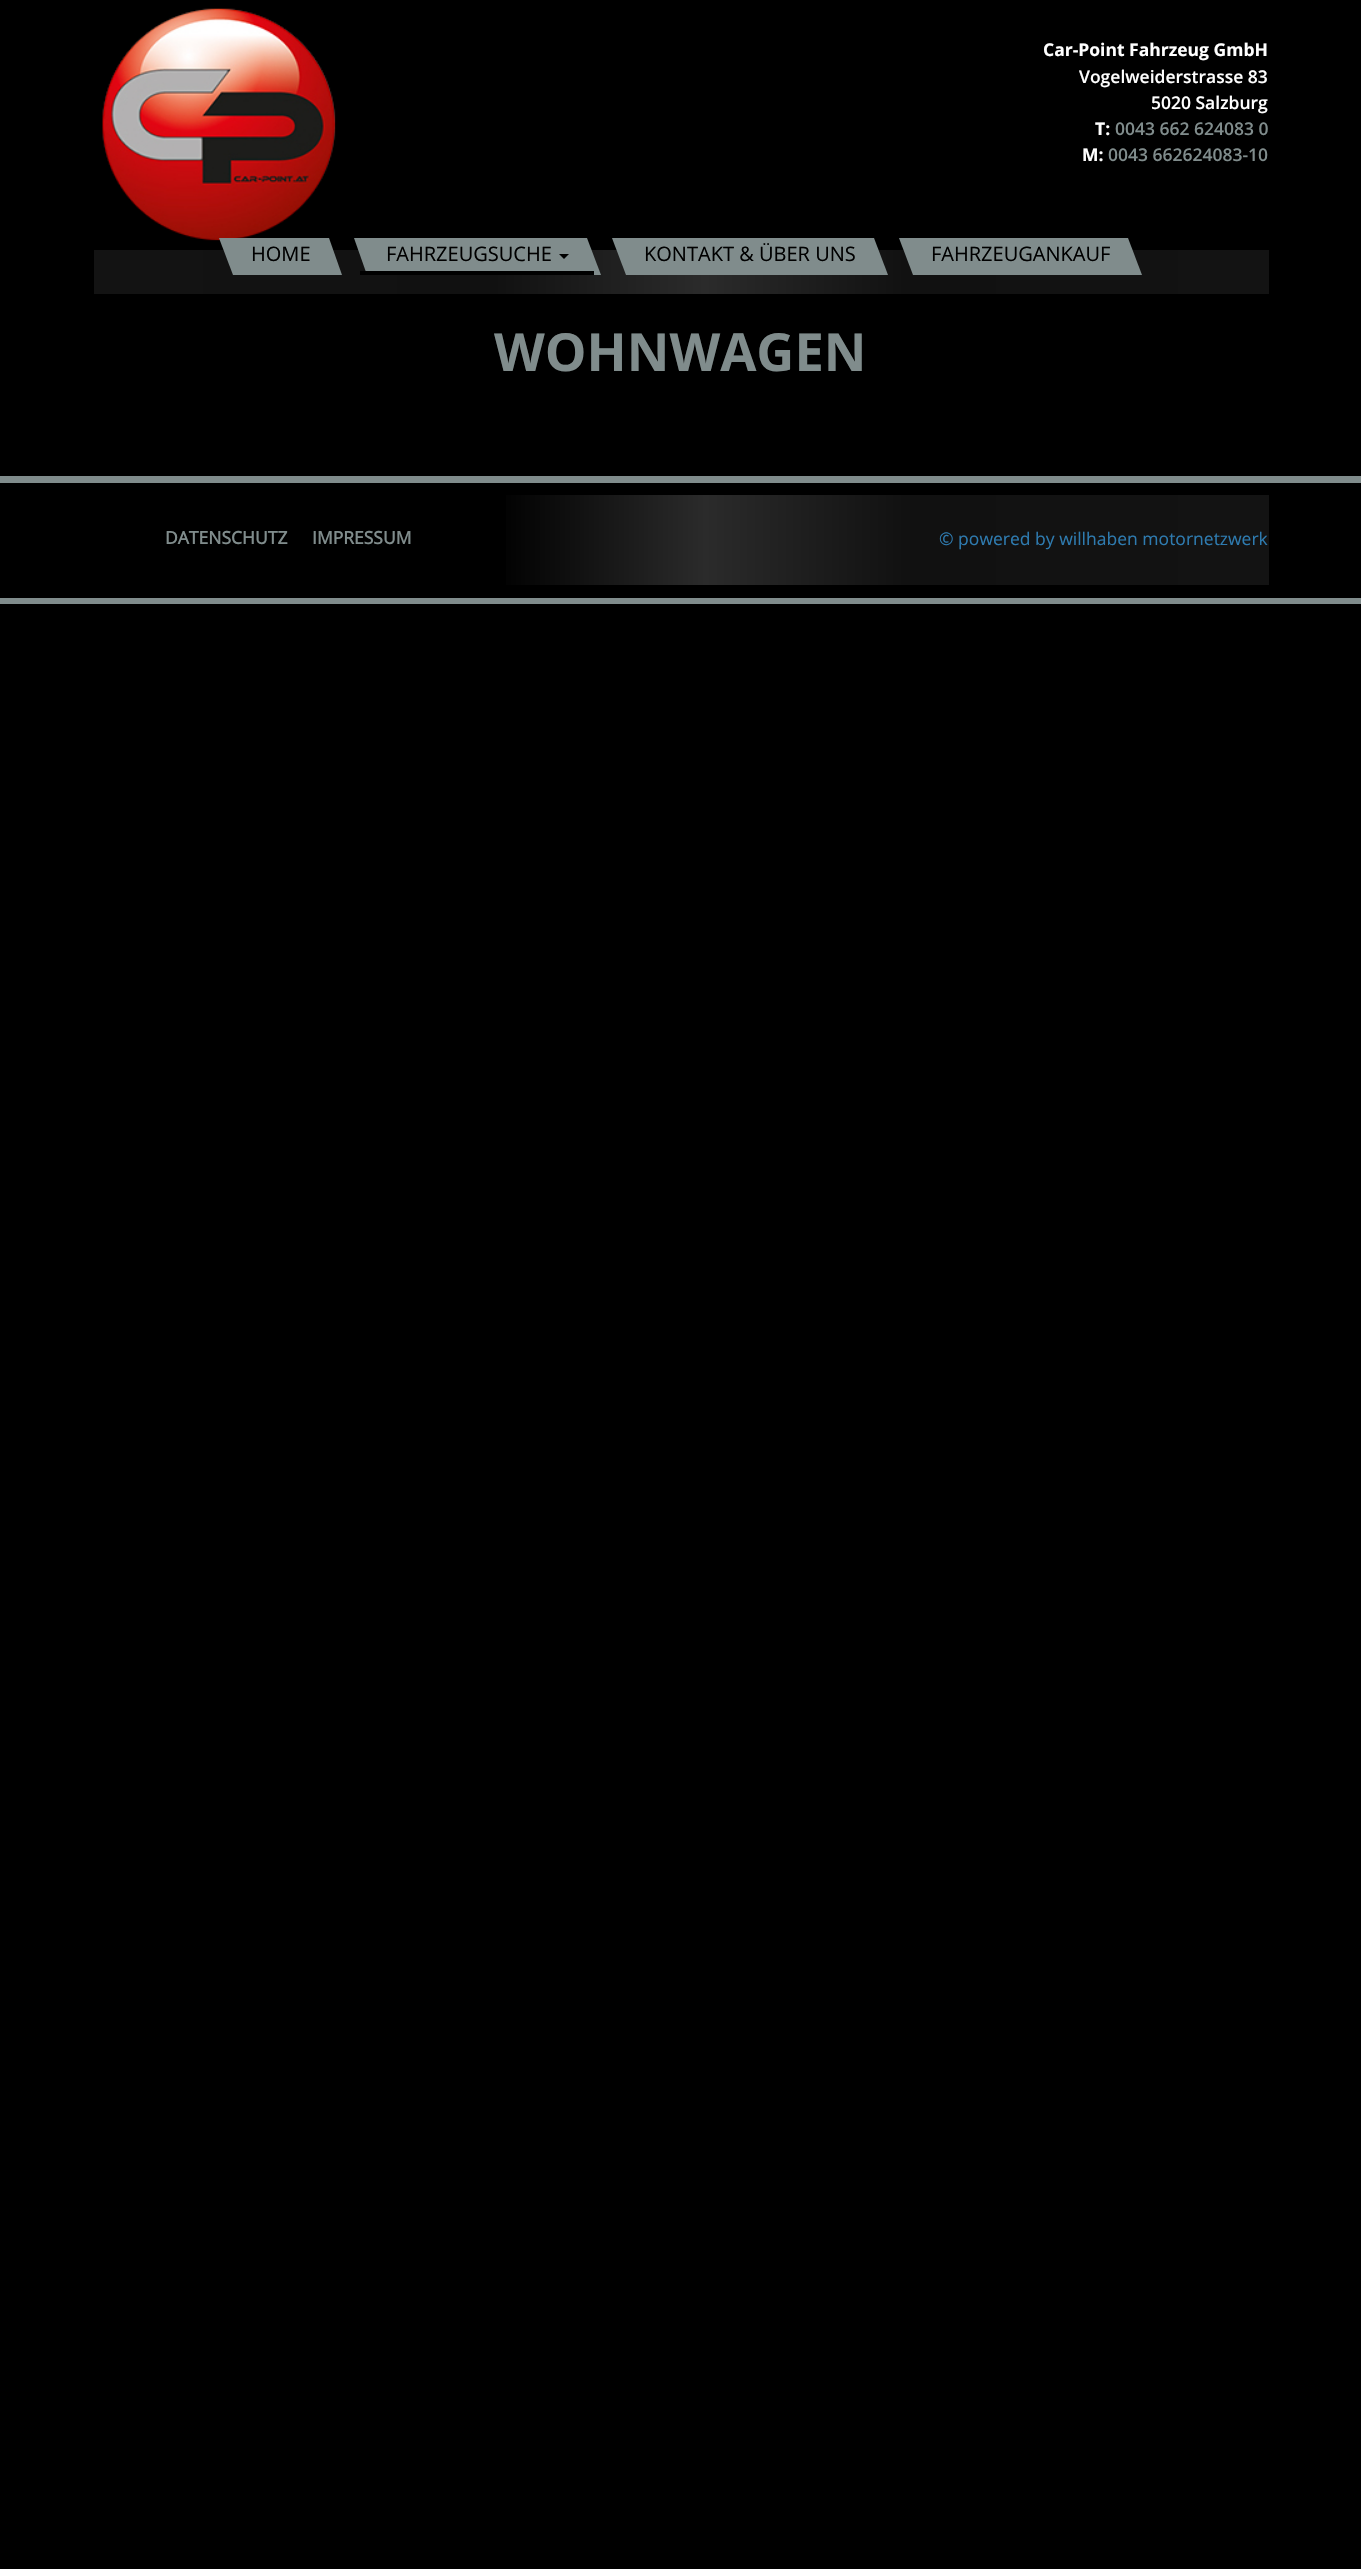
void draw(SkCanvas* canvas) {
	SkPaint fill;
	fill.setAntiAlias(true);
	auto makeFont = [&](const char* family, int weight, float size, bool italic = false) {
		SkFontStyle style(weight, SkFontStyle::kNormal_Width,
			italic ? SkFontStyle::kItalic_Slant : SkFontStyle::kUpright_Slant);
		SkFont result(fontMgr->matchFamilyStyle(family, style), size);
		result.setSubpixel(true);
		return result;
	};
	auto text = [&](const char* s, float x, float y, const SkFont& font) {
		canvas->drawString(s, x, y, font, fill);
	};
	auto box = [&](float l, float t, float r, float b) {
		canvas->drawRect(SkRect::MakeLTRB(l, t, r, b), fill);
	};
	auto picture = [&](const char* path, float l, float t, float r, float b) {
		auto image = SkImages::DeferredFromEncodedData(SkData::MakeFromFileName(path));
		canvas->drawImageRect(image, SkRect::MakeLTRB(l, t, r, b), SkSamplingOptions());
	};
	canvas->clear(0xFF000000);
	picture("image0.png", 102, 8, 336, 241);
	{
		const SkColor colors[] = {0xFF131313, 0xFF111111, 0xFF2B2B2B, 0xFF111111, 0xFF131313};
		const float stops[] = {0.01f, 0.34f, 0.52f, 0.69f, 1};
		const SkPoint ends[] = {{94, 272}, {1269, 272}};
		fill.setShader(SkGradientShader::MakeLinear(ends, colors, stops, 5, SkTileMode::kClamp));
		fill.setAlpha(255);
	}
	box(94, 250, 1269, 294);
	fill.setShader(nullptr);
	fill.setColor(0xFF808C8C);
	canvas->drawPath(SkPathBuilder().moveTo(219, 238).lineTo(329, 238).lineTo(342, 275).lineTo(233, 275).close().detach(), fill);
	canvas->drawPath(SkPathBuilder().moveTo(354, 238).lineTo(587, 238).lineTo(601, 275).lineTo(367, 275).close().detach(), fill);
	fill.setColor(0xFF000000);
	box(360, 271, 594, 275);
	canvas->drawPath(SkPathBuilder().moveTo(559, 254).lineTo(569, 254).lineTo(564, 259).close().detach(), fill);
	fill.setColor(0xFF808C8C);
	canvas->drawPath(SkPathBuilder().moveTo(612, 238).lineTo(874, 238).lineTo(888, 275).lineTo(626, 275).close().detach(), fill);
	canvas->drawPath(SkPathBuilder().moveTo(899, 238).lineTo(1128, 238).lineTo(1142, 275).lineTo(913, 275).close().detach(), fill);
	box(0, 476, 1361, 483);
	box(0, 598, 1361, 604);
	{
		const SkColor colors[] = {0xFF000000, 0xFF000000, 0xFF2B2B2B, 0xFF111111, 0xFF131313};
		const float stops[] = {0.01f, 0.34f, 0.52f, 0.69f, 1};
		const SkPoint ends[] = {{94, 540}, {1269, 540}};
		fill.setShader(SkGradientShader::MakeLinear(ends, colors, stops, 5, SkTileMode::kClamp));
		fill.setAlpha(255);
	}
	box(506, 495, 1269, 585);
	auto font1 = makeFont("Open Sans", 700, 17.5f);
	fill.setShader(nullptr);
	fill.setColor(0xFFFFFFFF);
	text("Car-Point Fahrzeug GmbH", 1043, 56, font1);
	auto font2 = makeFont("Open Sans", 600, 17.5f);
	text("Vogelweiderstrasse 83", 1079, 83, font2);
	text("5020 Salzburg", 1151, 109, font2);
	text("T:", 1095, 135, font1);
	fill.setColor(0xFF808C8C);
	text("0043 662 624083 0", 1115, 135, font2);
	fill.setColor(0xFFFFFFFF);
	text("M:", 1082, 161, font1);
	fill.setColor(0xFF808C8C);
	text("0043 662624083-10", 1108, 161, font2);
	auto font3 = makeFont("Open Sans", 400, 20);
	fill.setColor(0xFF000000);
	text("HOME", 251, 261, font3);
	text("FAHRZEUGSUCHE", 386, 261, font3);
	text("KONTAKT & ÜBER UNS", 644, 261, font3);
	text("FAHRZEUGANKAUF", 931, 261, font3);
	auto font4 = makeFont("Open Sans", 700, 52.5f);
	fill.setColor(0xFF808C8C);
	text("WOHNWAGEN", 494, 371, font4);
	auto font5 = makeFont("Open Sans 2", 700, 17.5f);
	text("DATENSCHUTZ", 165, 544, font5);
	text("IMPRESSUM", 312, 544, font5);
	auto font6 = makeFont("Open Sans", 400, 17.5f);
	fill.setColor(0xFF2E7BB0);
	text("© powered by willhaben motornetzwerk", 939, 545, font6);
}
